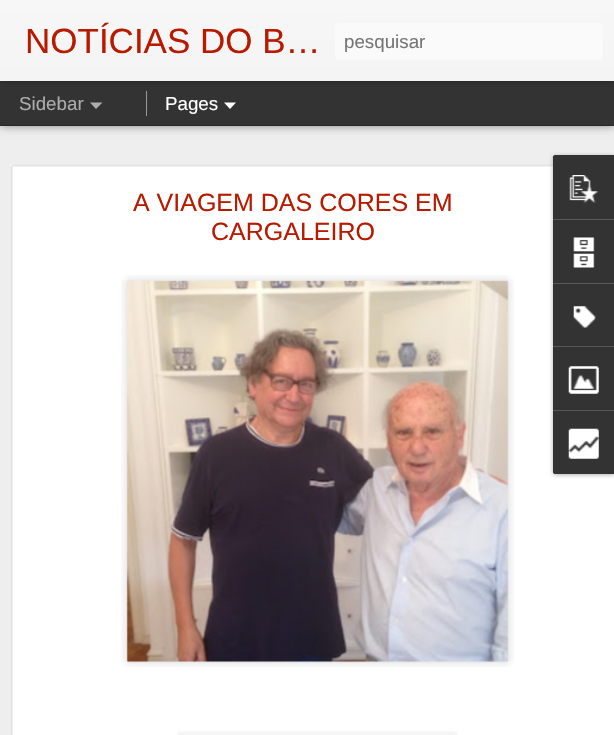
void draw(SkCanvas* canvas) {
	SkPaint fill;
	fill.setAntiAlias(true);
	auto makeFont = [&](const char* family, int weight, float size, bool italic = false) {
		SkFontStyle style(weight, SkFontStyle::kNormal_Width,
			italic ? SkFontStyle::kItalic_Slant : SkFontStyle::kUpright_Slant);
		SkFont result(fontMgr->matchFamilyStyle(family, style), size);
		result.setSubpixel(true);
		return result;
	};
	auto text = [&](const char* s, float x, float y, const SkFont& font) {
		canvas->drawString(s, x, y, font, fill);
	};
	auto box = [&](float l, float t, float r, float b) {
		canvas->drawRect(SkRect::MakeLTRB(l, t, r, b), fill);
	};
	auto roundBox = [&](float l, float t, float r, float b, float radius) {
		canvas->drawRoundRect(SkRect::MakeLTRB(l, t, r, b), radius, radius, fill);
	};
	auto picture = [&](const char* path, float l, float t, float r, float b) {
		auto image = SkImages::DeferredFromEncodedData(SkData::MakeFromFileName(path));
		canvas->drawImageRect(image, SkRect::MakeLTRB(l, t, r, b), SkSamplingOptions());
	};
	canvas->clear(0xFF333333);
	fill.setColor(0xFFEEEEEE);
	box(0, 126, 614, 735);
	fill.setColor(0x80000000);
	fill.setMaskFilter(SkMaskFilter::MakeBlur(kNormal_SkBlurStyle, 5));
	canvas->drawRect(SkRect::MakeLTRB(0, 81, 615, 125), fill);
	fill.setMaskFilter(nullptr);
	fill.setColor(0xFF333333);
	box(0, 81, 614, 125);
	fill.setColor(0x4D000000);
	fill.setMaskFilter(SkMaskFilter::MakeBlur(kNormal_SkBlurStyle, 3));
	canvas->drawRect(SkRect::MakeLTRB(0, 0, 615, 81), fill);
	fill.setMaskFilter(nullptr);
	{
		const SkColor colors[] = {0xFFF7F7F7, 0xFFF4F4F4};
		const float stops[] = {0, 1};
		const SkPoint ends[] = {{0, 0}, {0, 81}};
		fill.setShader(SkGradientShader::MakeLinear(ends, colors, stops, 2, SkTileMode::kClamp));
		fill.setAlpha(255);
	}
	box(0, 0, 614, 81);
	fill.setShader(nullptr);
	fill.setColor(0xFFFAFAFA);
	roundBox(335, 23, 603, 60, 4);
	fill.setColor(0xFFADADAD);
	canvas->drawPath(SkPathBuilder().moveTo(90, 102.5f).lineTo(102.5f, 102.5f).lineTo(96, 109).close().detach(), fill);
	fill.setColor(0xFF999999);
	box(146, 91, 147, 116);
	fill.setColor(0xFFFFFFFF);
	canvas->drawPath(SkPathBuilder().moveTo(224, 102.5f).lineTo(236, 102.5f).lineTo(230, 109).close().detach(), fill);
	box(10, 164, 614, 735);
	picture("image0.png", 10, 164, 553, 735);
	picture("image1.png", 121, 275, 514, 667);
	picture("image2.png", 126, 280, 509, 663);
	picture("image3.png", 177, 731, 458, 735);
	fill.setColor(0x4D000000);
	fill.setMaskFilter(SkMaskFilter::MakeBlur(kNormal_SkBlurStyle, 2));
	canvas->drawRoundRect(SkRect::MakeLTRB(553, 156, 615, 475), 2.5f, 2.5f, fill);
	fill.setMaskFilter(nullptr);
	fill.setColor(0xFF333333);
	canvas->drawPath(SkPathBuilder().moveTo(555.5f, 155).lineTo(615, 155).lineTo(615, 474).lineTo(555.5f, 474).cubicTo(554, 474, 553, 473, 553, 471.5f).lineTo(553, 157.5f).cubicTo(553, 156, 554, 155, 555.5f, 155).close().detach(), fill);
	canvas->drawPath(SkPathBuilder().moveTo(555.5f, 155).lineTo(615, 155).lineTo(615, 219).lineTo(553, 219).lineTo(553, 157.5f).cubicTo(553, 156, 554, 155, 555.5f, 155).close().detach(), fill);
	picture("image4.png", 569, 175, 598, 203);
	fill.setColor(0xFF585858);
	box(553, 219, 614, 220);
	picture("image5.png", 573, 237, 595, 268);
	box(553, 283, 614, 284);
	picture("image6.png", 573, 306, 596, 328);
	box(553, 346, 614, 347);
	picture("image7.png", 568, 366, 599, 394);
	fill.setColor(0xFF333333);
	canvas->drawPath(SkPathBuilder().moveTo(553, 410).lineTo(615, 410).lineTo(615, 474).lineTo(555.5f, 474).cubicTo(554, 474, 553, 473, 553, 471.5f).close().detach(), fill);
	fill.setColor(0xFF585858);
	box(553, 410, 614, 411);
	picture("image8.png", 568, 428, 599, 459);
	auto font1 = makeFont("Liberation Sans", 400, 35);
	fill.setColor(0xFFB81A00);
	text("NOTÍCIAS DO B…", 25, 53, font1);
	auto font2 = makeFont("Liberation Sans", 400, 18.75f);
	fill.setColor(0xFF757575);
	text("pesquisar", 344, 48, font2);
	fill.setColor(0xFFADADAD);
	text("Sidebar", 19, 110, font2);
	fill.setColor(0xFFFFFFFF);
	text("Pages", 165, 110, font2);
	auto font3 = makeFont("Liberation Sans", 400, 25);
	fill.setColor(0xFFB81A00);
	text("A VIAGEM DAS CORES EM", 133, 211, font3);
	text("CARGALEIRO", 211, 240, font3);
}
